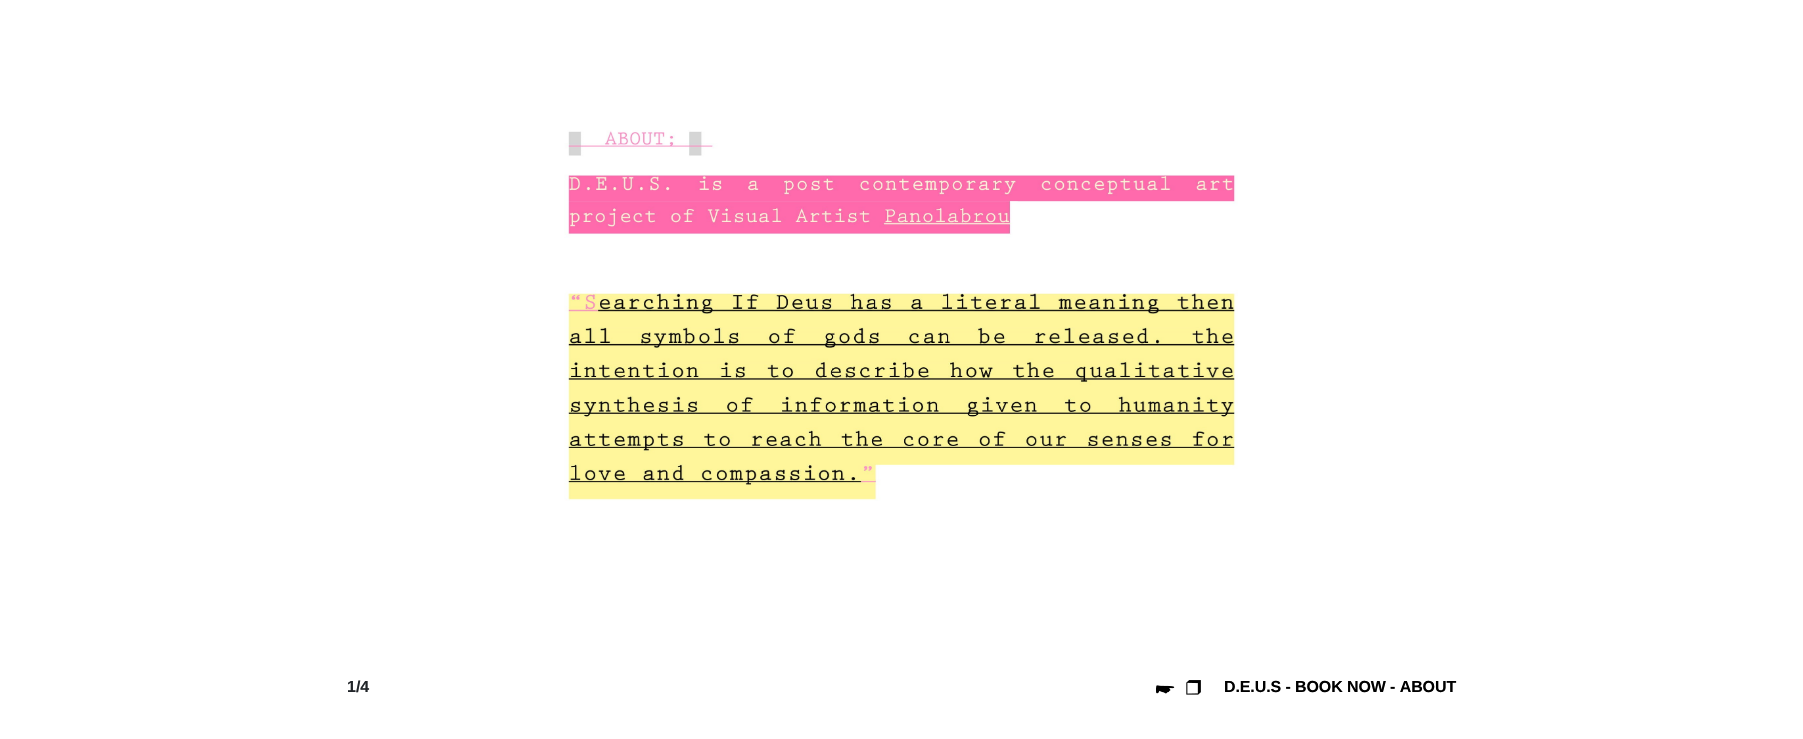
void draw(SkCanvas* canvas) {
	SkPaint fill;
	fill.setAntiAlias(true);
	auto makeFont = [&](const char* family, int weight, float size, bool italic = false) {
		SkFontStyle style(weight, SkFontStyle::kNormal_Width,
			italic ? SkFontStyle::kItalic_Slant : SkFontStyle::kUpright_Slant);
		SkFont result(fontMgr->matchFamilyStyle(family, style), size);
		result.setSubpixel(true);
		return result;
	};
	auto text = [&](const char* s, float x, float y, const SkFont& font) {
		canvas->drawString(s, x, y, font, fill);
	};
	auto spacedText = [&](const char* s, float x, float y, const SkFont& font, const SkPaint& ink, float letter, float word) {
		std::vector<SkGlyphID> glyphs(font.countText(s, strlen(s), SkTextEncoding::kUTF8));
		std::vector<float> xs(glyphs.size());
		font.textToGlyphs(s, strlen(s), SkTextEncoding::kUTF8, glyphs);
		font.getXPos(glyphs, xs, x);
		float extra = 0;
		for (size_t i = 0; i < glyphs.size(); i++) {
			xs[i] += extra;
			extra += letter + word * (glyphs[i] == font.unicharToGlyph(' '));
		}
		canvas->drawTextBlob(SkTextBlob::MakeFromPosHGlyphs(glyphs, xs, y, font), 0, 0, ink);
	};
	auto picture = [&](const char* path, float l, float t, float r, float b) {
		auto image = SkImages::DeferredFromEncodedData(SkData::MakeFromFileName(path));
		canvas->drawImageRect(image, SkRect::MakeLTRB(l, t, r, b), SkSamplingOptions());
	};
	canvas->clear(0xFFFFFFFF);
	picture("image0.png", 564, 130, 1238, 501);
	picture("image1.png", 1156, 680, 1201, 695);
	auto font1 = makeFont("Liberation Sans", 700, 16);
	fill.setColor(0xFF212529);
	text("1/4", 347, 692, font1);
	fill.setColor(0xFF000000);
	spacedText("D.E.U.S - BOOK NOW - ABOUT", 1224, 692, font1, fill, -0.1f, 0);
}
